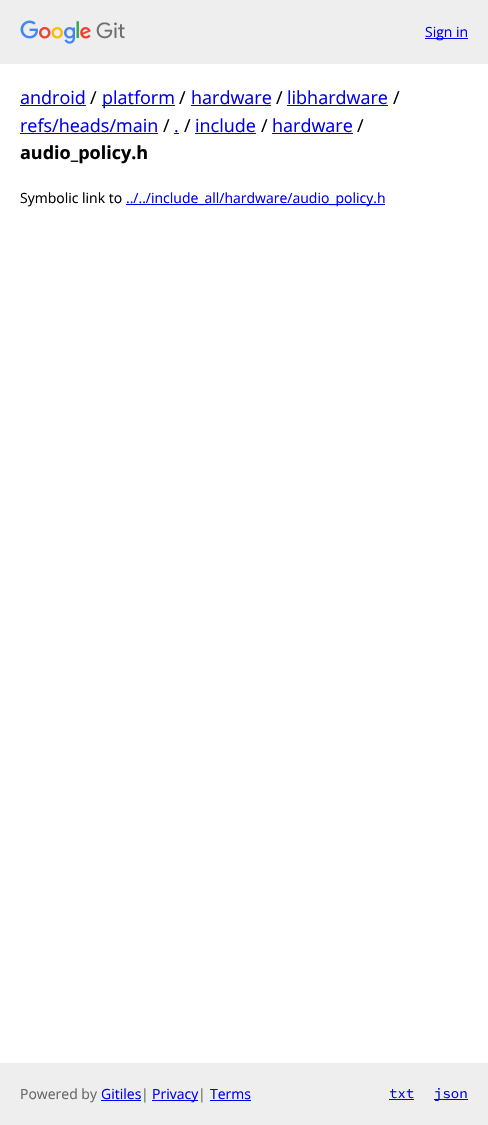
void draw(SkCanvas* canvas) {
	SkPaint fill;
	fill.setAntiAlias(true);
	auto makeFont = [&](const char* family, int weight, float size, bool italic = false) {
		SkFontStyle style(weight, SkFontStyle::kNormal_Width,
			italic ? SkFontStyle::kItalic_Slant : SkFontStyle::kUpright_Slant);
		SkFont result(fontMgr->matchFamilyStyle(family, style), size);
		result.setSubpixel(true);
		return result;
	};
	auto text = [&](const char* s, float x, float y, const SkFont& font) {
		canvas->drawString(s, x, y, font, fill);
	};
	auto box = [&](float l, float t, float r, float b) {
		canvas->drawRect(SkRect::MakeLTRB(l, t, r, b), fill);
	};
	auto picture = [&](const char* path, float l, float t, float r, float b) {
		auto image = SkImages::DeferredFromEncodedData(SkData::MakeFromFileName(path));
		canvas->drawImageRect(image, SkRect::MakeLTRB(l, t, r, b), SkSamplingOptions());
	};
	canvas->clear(0xFFFFFFFF);
	fill.setColor(0xFFEEEEEE);
	box(0, 0, 488, 64);
	picture("image0.png", 20, 20, 125, 44);
	fill.setColor(0xFF0000EE);
	box(425, 38, 468, 39);
	box(20, 105, 86, 106);
	box(102, 105, 175, 106);
	box(191, 105, 271, 106);
	box(287, 105, 388, 106);
	box(20, 133, 158, 134);
	box(174, 133, 179, 134);
	box(195, 133, 256, 134);
	box(272, 133, 353, 134);
	box(126, 204, 385, 205);
	fill.setColor(0xFFEEEEEE);
	box(0, 1063, 488, 1125);
	fill.setColor(0xFF0000EE);
	box(101, 1100, 141, 1101);
	box(152, 1100, 198, 1101);
	box(210, 1100, 251, 1101);
	box(389, 1099, 414, 1100);
	box(434, 1099, 468, 1100);
	auto font1 = makeFont("Open Sans", 400, 14);
	text("Sign in", 425, 37, font1);
	auto font2 = makeFont("Open Sans", 400, 18);
	text("android", 20, 104, font2);
	fill.setColor(0xFF000000);
	text("/", 90, 104, font2);
	fill.setColor(0xFF0000EE);
	text("platform", 102, 104, font2);
	fill.setColor(0xFF000000);
	text("/", 179, 104, font2);
	fill.setColor(0xFF0000EE);
	text("hardware", 191, 104, font2);
	fill.setColor(0xFF000000);
	text("/", 276, 104, font2);
	fill.setColor(0xFF0000EE);
	text("libhardware", 287, 104, font2);
	fill.setColor(0xFF000000);
	text("/", 393, 104, font2);
	fill.setColor(0xFF0000EE);
	text("refs/heads/main", 20, 132, font2);
	fill.setColor(0xFF000000);
	text("/", 163, 132, font2);
	fill.setColor(0xFF0000EE);
	text(".", 174, 132, font2);
	fill.setColor(0xFF000000);
	text("/", 184, 132, font2);
	fill.setColor(0xFF0000EE);
	text("include", 195, 132, font2);
	fill.setColor(0xFF000000);
	text("/", 261, 132, font2);
	fill.setColor(0xFF0000EE);
	text("hardware", 272, 132, font2);
	fill.setColor(0xFF000000);
	text("/", 357, 132, font2);
	auto font3 = makeFont("Open Sans", 700, 18);
	text("audio_policy.h", 20, 159, font3);
	text("Symbolic link to", 20, 203, font1);
	fill.setColor(0xFF0000EE);
	text("../../include_all/hardware/audio_policy.h", 126, 203, font1);
	fill.setColor(0xFF666666);
	text("Powered by", 20, 1099, font1);
	fill.setColor(0xFF0000EE);
	text("Gitiles", 101, 1099, font1);
	fill.setColor(0xFF666666);
	text("|", 141, 1099, font1);
	fill.setColor(0xFF0000EE);
	text("Privacy", 152, 1099, font1);
	fill.setColor(0xFF666666);
	text("|", 198, 1099, font1);
	fill.setColor(0xFF0000EE);
	text("Terms", 210, 1099, font1);
	auto font4 = makeFont("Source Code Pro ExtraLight", 200, 14);
	text("txt", 389, 1098, font4);
	text("json", 434, 1098, font4);
}
